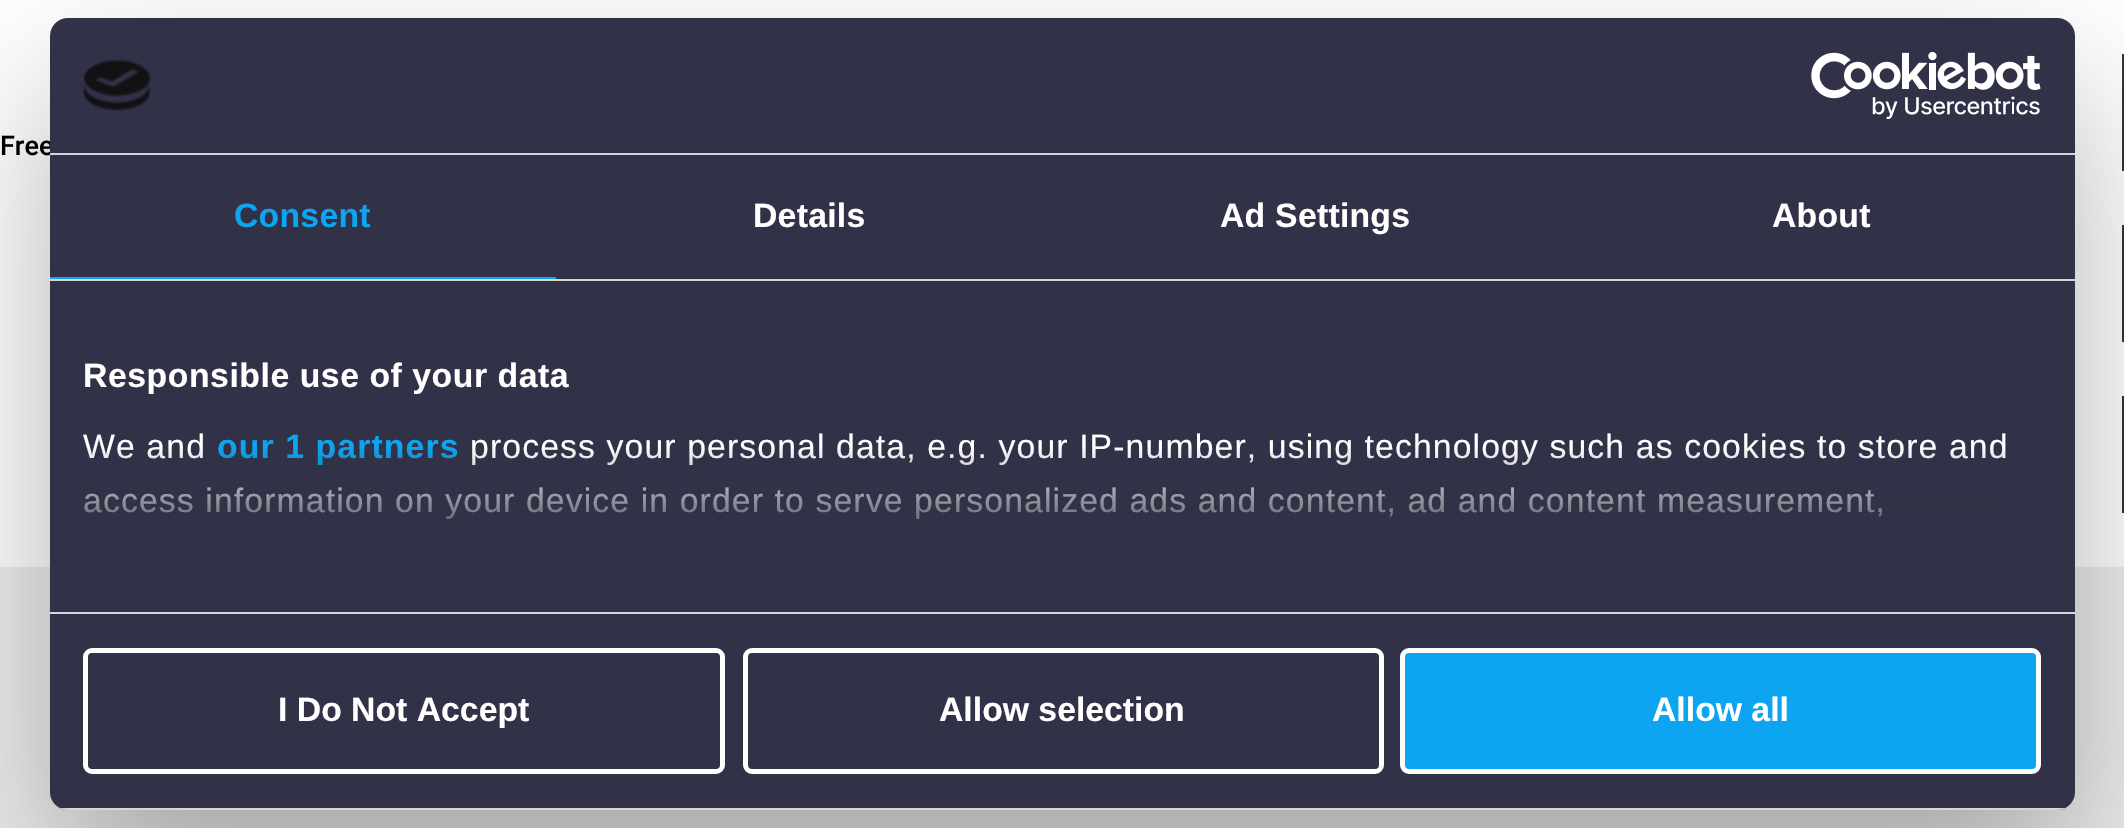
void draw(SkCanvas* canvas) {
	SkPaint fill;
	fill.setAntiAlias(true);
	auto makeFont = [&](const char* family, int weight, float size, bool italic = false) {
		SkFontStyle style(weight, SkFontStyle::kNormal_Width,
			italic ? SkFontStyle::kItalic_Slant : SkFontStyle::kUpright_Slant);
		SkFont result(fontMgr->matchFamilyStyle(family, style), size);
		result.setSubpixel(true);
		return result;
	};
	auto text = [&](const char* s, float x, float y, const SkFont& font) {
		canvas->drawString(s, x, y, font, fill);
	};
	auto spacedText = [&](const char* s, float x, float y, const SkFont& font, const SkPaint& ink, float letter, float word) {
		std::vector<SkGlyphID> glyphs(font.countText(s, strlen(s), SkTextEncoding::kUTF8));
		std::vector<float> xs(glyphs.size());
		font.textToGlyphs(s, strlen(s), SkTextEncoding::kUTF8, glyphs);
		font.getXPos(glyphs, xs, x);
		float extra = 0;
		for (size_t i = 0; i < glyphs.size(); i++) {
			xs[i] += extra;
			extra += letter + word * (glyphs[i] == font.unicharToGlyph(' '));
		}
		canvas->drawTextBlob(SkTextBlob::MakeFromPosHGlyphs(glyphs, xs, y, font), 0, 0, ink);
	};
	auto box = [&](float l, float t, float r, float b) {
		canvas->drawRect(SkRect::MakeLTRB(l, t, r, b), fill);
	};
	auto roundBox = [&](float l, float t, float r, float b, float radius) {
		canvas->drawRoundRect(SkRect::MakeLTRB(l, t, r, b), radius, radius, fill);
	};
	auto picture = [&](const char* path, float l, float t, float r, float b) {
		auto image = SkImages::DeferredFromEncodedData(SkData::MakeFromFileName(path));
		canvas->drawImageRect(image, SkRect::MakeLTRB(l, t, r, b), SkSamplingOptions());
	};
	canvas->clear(0xFFFFFFFF);
	fill.setColor(0xFF333333);
	box(2122, 54, 2124, 171);
	box(2122, 225, 2124, 342);
	box(2122, 396, 2124, 513);
	fill.setColor(0xFFEDEDED);
	box(0, 567, 2124, 828);
	fill.setColor(0x4D000000);
	fill.setMaskFilter(SkMaskFilter::MakeBlur(kNormal_SkBlurStyle, 76.5f));
	canvas->drawRoundRect(SkRect::MakeLTRB(50, 90, 2075, 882), 18, 18, fill);
	fill.setMaskFilter(nullptr);
	auto font1 = makeFont("Roboto", 500, 27);
	fill.setColor(0xFF000000);
	text("Free", 0, 155, font1);
	fill.setColor(0xFF313147);
	roundBox(50, 18, 2075, 810, 18);
	fill.setColor(0xFFD6D6D6);
	box(50, 153, 2075, 155);
	picture("image0.png", 83, 59, 151, 111);
	picture("image1.png", 1811, 52, 2041, 119);
	box(50, 279, 2075, 281);
	fill.setColor(0xFF0DA5F1);
	box(50, 277, 556, 279);
	auto font2 = makeFont("Liberation Sans", 700, 33.75f);
	spacedText("Consent", 234, 227, font2, fill, 0.25f, 0);
	fill.setColor(0xFFFFFFFF);
	spacedText("Details", 753, 227, font2, fill, 0.25f, 0);
	spacedText("Ad Settings", 1220, 227, font2, fill, 0.25f, 0);
	spacedText("About", 1772, 227, font2, fill, 0.25f, 0);
	fill.setColor(0xFFD6D6D6);
	box(50, 612, 2075, 614);
	fill.setColor(0xFFFFFFFF);
	spacedText("Responsible use of your data", 83, 387, font2, fill, 0.55f, 0);
	auto font3 = makeFont("Liberation Sans", 400, 33.75f);
	spacedText("We and", 83, 458, font3, fill, 1.12f, 0);
	fill.setColor(0xFF0DA5F1);
	spacedText("our 1 partners", 217, 458, font2, fill, 1.12f, 0);
	fill.setColor(0xFFFFFFFF);
	spacedText("process your personal data, e.g. your IP-number, using technology such as cookies to store and", 470, 458, font3, fill, 1.12f, 0);
	spacedText("access information on your device in order to serve personalized ads and content, ad and content measurement,", 83, 512, font3, fill, 1.12f, 0);
	{
		const SkColor colors[] = {0xFF313147, 0xCC313147, 0x00313147};
		const float stops[] = {0, 0.5f, 1};
		const SkPoint ends[] = {{1047, 612}, {1047, 446}};
		fill.setShader(SkGradientShader::MakeLinear(ends, colors, stops, 3, SkTileMode::kClamp));
		fill.setAlpha(255);
	}
	box(84, 448, 2006, 519);
	canvas->save();
	canvas->clipPath(SkPathBuilder().moveTo(68, 18).lineTo(2057, 18).cubicTo(2067, 18, 2075, 26, 2075, 36).lineTo(2075, 792).cubicTo(2075, 802, 2067, 810, 2057, 810).lineTo(68, 810).cubicTo(58, 810, 50, 802, 50, 792).lineTo(50, 36).cubicTo(50, 26, 58, 18, 68, 18).close().detach(), true);
	fill.setShader(nullptr);
	fill.setColor(0xFFD6D6D6);
	box(60, 808, 2065, 810);
	canvas->restore();
	fill.setStyle(SkPaint::kStroke_Style);
	fill.setStrokeWidth(5);
	fill.setColor(0xFFFFFFFF);
	canvas->drawRoundRect(SkRect::MakeLTRB(85.5f, 650.5f, 722.5f, 771.5f), 6.5f, 6.5f, fill);
	fill.setStyle(SkPaint::kFill_Style);
	text("I Do Not Accept", 278, 721, font2);
	fill.setStyle(SkPaint::kStroke_Style);
	canvas->drawRoundRect(SkRect::MakeLTRB(745.5f, 650.5f, 1381.5f, 771.5f), 6.5f, 6.5f, fill);
	fill.setStyle(SkPaint::kFill_Style);
	text("Allow selection", 939, 721, font2);
	fill.setColor(0xFF0DA5F1);
	canvas->drawRoundRect(SkRect::MakeLTRB(1402.5f, 650.5f, 2038.5f, 771.5f), 6.5f, 6.5f, fill);
	fill.setStyle(SkPaint::kStroke_Style);
	fill.setColor(0xFFFFFFFF);
	canvas->drawRoundRect(SkRect::MakeLTRB(1402.5f, 650.5f, 2038.5f, 771.5f), 6.5f, 6.5f, fill);
	fill.setStyle(SkPaint::kFill_Style);
	text("Allow all", 1652, 721, font2);
}
